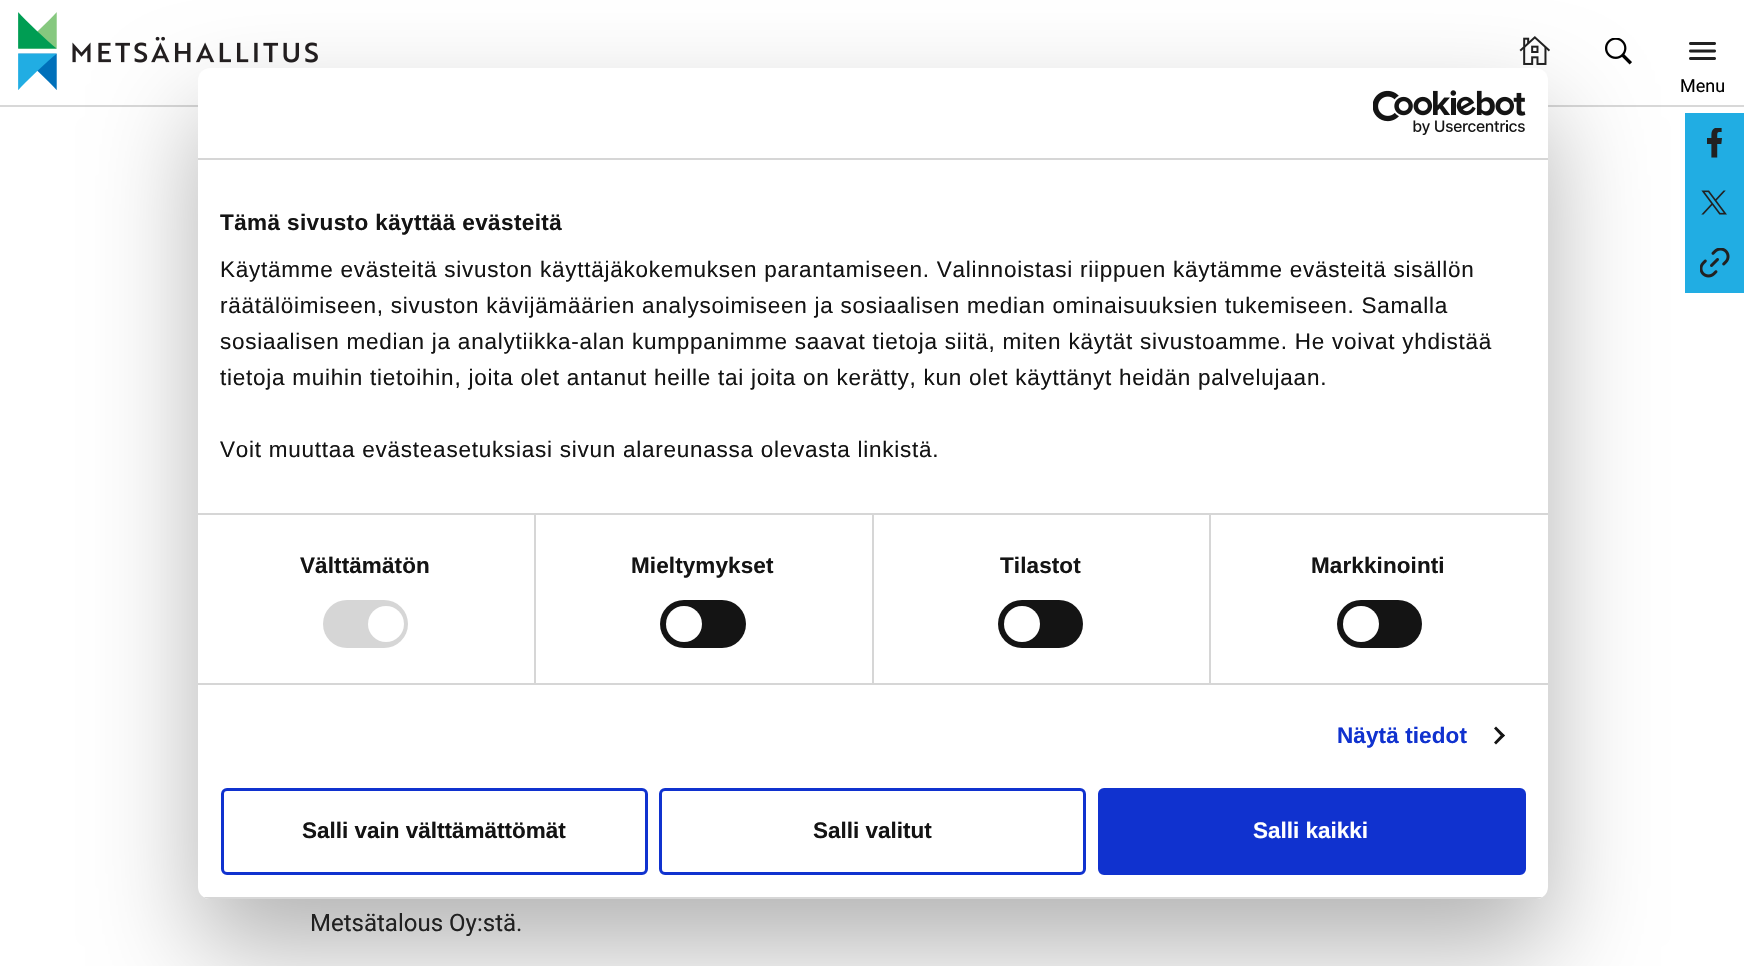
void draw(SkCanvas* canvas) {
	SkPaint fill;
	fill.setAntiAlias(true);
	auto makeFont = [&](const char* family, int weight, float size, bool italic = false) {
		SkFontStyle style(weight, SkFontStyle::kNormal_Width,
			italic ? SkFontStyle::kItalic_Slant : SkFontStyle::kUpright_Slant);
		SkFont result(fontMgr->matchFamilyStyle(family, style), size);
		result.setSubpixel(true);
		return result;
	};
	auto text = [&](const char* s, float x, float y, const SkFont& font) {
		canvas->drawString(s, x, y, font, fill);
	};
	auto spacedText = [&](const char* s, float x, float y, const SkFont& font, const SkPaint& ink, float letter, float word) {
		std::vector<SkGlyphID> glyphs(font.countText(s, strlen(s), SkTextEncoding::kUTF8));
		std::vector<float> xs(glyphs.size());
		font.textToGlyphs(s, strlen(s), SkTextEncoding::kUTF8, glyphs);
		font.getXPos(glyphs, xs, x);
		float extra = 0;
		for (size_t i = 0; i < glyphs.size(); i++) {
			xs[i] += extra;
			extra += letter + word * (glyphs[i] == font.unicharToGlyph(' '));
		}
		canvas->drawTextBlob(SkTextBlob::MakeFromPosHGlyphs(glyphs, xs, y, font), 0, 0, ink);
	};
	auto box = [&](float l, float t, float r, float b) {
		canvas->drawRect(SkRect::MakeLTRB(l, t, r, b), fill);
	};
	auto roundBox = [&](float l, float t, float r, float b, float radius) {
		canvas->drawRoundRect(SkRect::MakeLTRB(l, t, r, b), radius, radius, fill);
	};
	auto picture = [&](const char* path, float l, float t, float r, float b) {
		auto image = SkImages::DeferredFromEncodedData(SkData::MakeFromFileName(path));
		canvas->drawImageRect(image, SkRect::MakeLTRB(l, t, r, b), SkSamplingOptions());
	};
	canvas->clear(0xFFFFFFFF);
	fill.setColor(0xFFD8D8D8);
	box(0, 105, 1744, 107);
	picture("image0.png", 18, 12, 318, 90);
	picture("image1.png", 1519, 36, 1550, 65);
	picture("image2.png", 1605, 38, 1632, 65);
	picture("image3.png", 1689, 42, 1716, 60);
	fill.setColor(0xFF21ADE3);
	box(1685, 113, 1744, 293);
	picture("image6.png", 1701, 190, 1727, 215);
	picture("image7.png", 1700, 248, 1730, 278);
	fill.setColor(0x4D000000);
	fill.setMaskFilter(SkMaskFilter::MakeBlur(kNormal_SkBlurStyle, 51));
	canvas->drawRoundRect(SkRect::MakeLTRB(198, 116, 1548, 947), 12, 12, fill);
	fill.setMaskFilter(nullptr);
	fill.setColor(0xFFFFFFFF);
	roundBox(198, 68, 1548, 899, 12);
	fill.setColor(0xFFD6D6D6);
	box(198, 158, 1548, 160);
	picture("image4.png", 1373, 90, 1526, 135);
	box(198, 513, 1548, 515);
	box(198, 683, 1548, 685);
	box(534, 515, 536, 683);
	roundBox(323, 600, 408, 648, 24);
	fill.setColor(0xFFFFFFFF);
	canvas->drawCircle(386, 624, 18, fill);
	fill.setColor(0xFFD6D6D6);
	box(872, 515, 874, 683);
	fill.setColor(0xFF141414);
	roundBox(660, 600, 746, 648, 24);
	fill.setColor(0xFFFFFFFF);
	canvas->drawCircle(684, 624, 18, fill);
	fill.setColor(0xFFD6D6D6);
	box(1209, 515, 1211, 683);
	fill.setColor(0xFF141414);
	roundBox(998, 600, 1083, 648, 24);
	fill.setColor(0xFFFFFFFF);
	canvas->drawCircle(1022, 624, 18, fill);
	fill.setColor(0xFF141414);
	roundBox(1337, 600, 1422, 648, 24);
	fill.setColor(0xFFFFFFFF);
	canvas->drawCircle(1361, 624, 18, fill);
	fill.setColor(0xFF141414);
	canvas->drawPath(SkPathBuilder().moveTo(1496, 726.5f).lineTo(1505, 735.5f).lineTo(1502.5f, 737.5f).lineTo(1494, 728.5f).close().detach(), fill);
	canvas->drawPath(SkPathBuilder().moveTo(1502.5f, 733.5f).lineTo(1505, 735.5f).lineTo(1496, 744.5f).lineTo(1494, 742.5f).close().detach(), fill);
	canvas->save();
	canvas->clipPath(SkPathBuilder().moveTo(210, 68).lineTo(1536, 68).cubicTo(1542.5f, 68, 1548, 73.5f, 1548, 80).lineTo(1548, 887).cubicTo(1548, 893.5f, 1542.5f, 899, 1536, 899).lineTo(210, 899).cubicTo(203.5f, 899, 198, 893.5f, 198, 887).lineTo(198, 80).cubicTo(198, 73.5f, 203.5f, 68, 210, 68).close().detach(), true);
	fill.setColor(0xFFD6D6D6);
	box(198, 897, 1548, 899);
	canvas->restore();
	fill.setStyle(SkPaint::kStroke_Style);
	fill.setStrokeWidth(3);
	fill.setColor(0xFF1032CF);
	canvas->drawRoundRect(SkRect::MakeLTRB(222.5f, 789.5f, 646.5f, 873.5f), 4.5f, 4.5f, fill);
	canvas->drawRoundRect(SkRect::MakeLTRB(660.5f, 789.5f, 1084.5f, 873.5f), 4.5f, 4.5f, fill);
	fill.setStyle(SkPaint::kFill_Style);
	canvas->drawRoundRect(SkRect::MakeLTRB(1099.5f, 789.5f, 1524.5f, 873.5f), 4.5f, 4.5f, fill);
	fill.setStyle(SkPaint::kStroke_Style);
	canvas->drawRoundRect(SkRect::MakeLTRB(1099.5f, 789.5f, 1524.5f, 873.5f), 4.5f, 4.5f, fill);
	picture("image5.png", 1707, 128, 1722, 158);
	auto font1 = makeFont("Heebo", 400, 18);
	fill.setStyle(SkPaint::kFill_Style);
	fill.setColor(0xFF000000);
	text("Menu", 1680, 92, font1);
	auto font2 = makeFont("Liberation Sans", 700, 22.5f);
	fill.setColor(0xFF141414);
	spacedText("Tämä sivusto käyttää evästeitä", 220, 230, font2, fill, 0.4f, 0);
	auto font3 = makeFont("Liberation Sans", 400, 22.5f);
	spacedText("Käytämme evästeitä sivuston käyttäjäkokemuksen parantamiseen. Valinnoistasi riippuen käytämme evästeitä sisällön", 220, 277, font3, fill, 0.75f, 0);
	spacedText("räätälöimiseen, sivuston kävijämäärien analysoimiseen ja sosiaalisen median ominaisuuksien tukemiseen. Samalla", 220, 313, font3, fill, 0.75f, 0);
	spacedText("sosiaalisen median ja analytiikka-alan kumppanimme saavat tietoja siitä, miten käytät sivustoamme. He voivat yhdistää", 220, 349, font3, fill, 0.75f, 0);
	spacedText("tietoja muihin tietoihin, joita olet antanut heille tai joita on kerätty, kun olet käyttänyt heidän palvelujaan.", 220, 385, font3, fill, 0.75f, 0);
	spacedText("Voit muuttaa evästeasetuksiasi sivun alareunassa olevasta linkistä.", 220, 457, font3, fill, 0.75f, 0);
	spacedText("Välttämätön", 300, 573, font2, fill, 0.1f, 0);
	spacedText("Mieltymykset", 631, 573, font2, fill, 0.1f, 0);
	spacedText("Tilastot", 1000, 573, font2, fill, 0.1f, 0);
	spacedText("Markkinointi", 1311, 573, font2, fill, 0.1f, 0);
	fill.setColor(0xFF1032CF);
	spacedText("Näytä tiedot", 1337, 743, font2, fill, 0.1f, 0);
	fill.setColor(0xFF141414);
	text("Salli vain välttämättömät", 302, 838, font2);
	text("Salli valitut", 813, 838, font2);
	fill.setColor(0xFFFFFFFF);
	text("Salli kaikki", 1253, 838, font2);
	auto font4 = makeFont("Heebo", 400, 24);
	fill.setColor(0xFF212121);
	text("Metsätalous Oy:stä.", 310, 931, font4);
}
